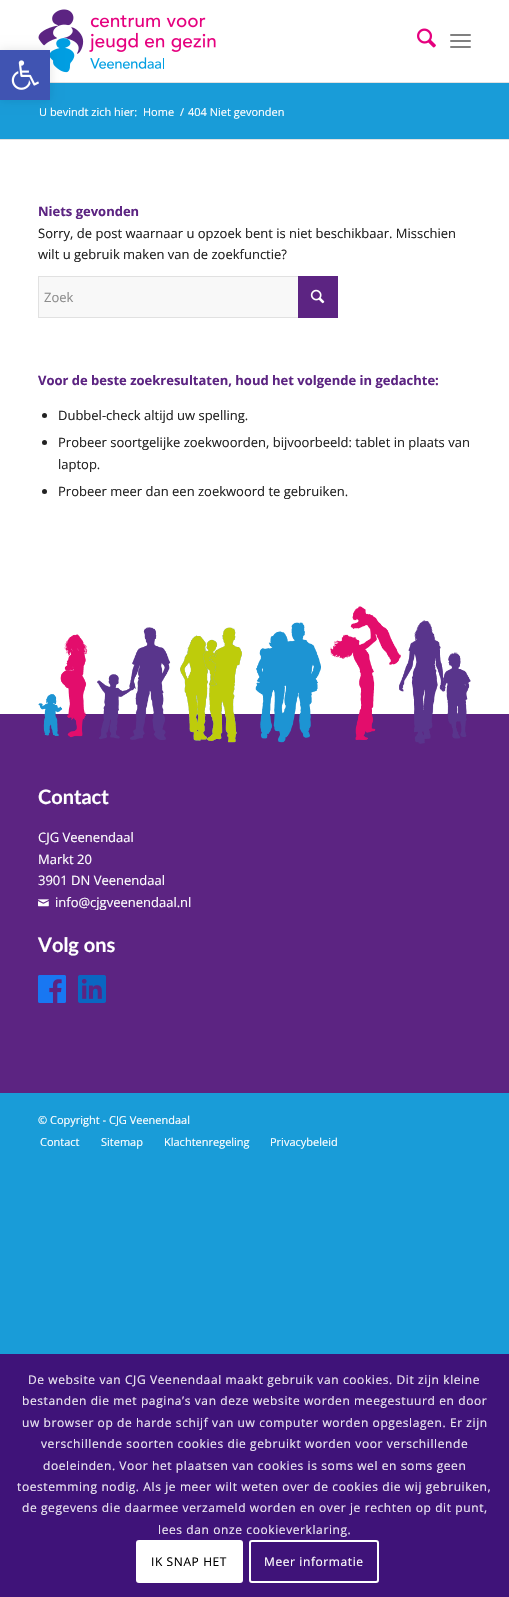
void draw(SkCanvas* canvas) {
	SkPaint fill;
	fill.setAntiAlias(true);
	auto makeFont = [&](const char* family, int weight, float size, bool italic = false) {
		SkFontStyle style(weight, SkFontStyle::kNormal_Width,
			italic ? SkFontStyle::kItalic_Slant : SkFontStyle::kUpright_Slant);
		SkFont result(fontMgr->matchFamilyStyle(family, style), size);
		result.setSubpixel(true);
		return result;
	};
	auto text = [&](const char* s, float x, float y, const SkFont& font) {
		canvas->drawString(s, x, y, font, fill);
	};
	auto spacedText = [&](const char* s, float x, float y, const SkFont& font, const SkPaint& ink, float letter, float word) {
		std::vector<SkGlyphID> glyphs(font.countText(s, strlen(s), SkTextEncoding::kUTF8));
		std::vector<float> xs(glyphs.size());
		font.textToGlyphs(s, strlen(s), SkTextEncoding::kUTF8, glyphs);
		font.getXPos(glyphs, xs, x);
		float extra = 0;
		for (size_t i = 0; i < glyphs.size(); i++) {
			xs[i] += extra;
			extra += letter + word * (glyphs[i] == font.unicharToGlyph(' '));
		}
		canvas->drawTextBlob(SkTextBlob::MakeFromPosHGlyphs(glyphs, xs, y, font), 0, 0, ink);
	};
	auto box = [&](float l, float t, float r, float b) {
		canvas->drawRect(SkRect::MakeLTRB(l, t, r, b), fill);
	};
	auto roundBox = [&](float l, float t, float r, float b, float radius) {
		canvas->drawRoundRect(SkRect::MakeLTRB(l, t, r, b), radius, radius, fill);
	};
	auto picture = [&](const char* path, float l, float t, float r, float b) {
		auto image = SkImages::DeferredFromEncodedData(SkData::MakeFromFileName(path));
		canvas->drawImageRect(image, SkRect::MakeLTRB(l, t, r, b), SkSamplingOptions());
	};
	canvas->clear(0xFF199CD8);
	fill.setColor(0xFFFFFFFF);
	box(0, 0, 509, 714);
	fill.setColor(0xFFE1E1E1);
	box(50, 82, 509, 83);
	picture("image1.png", 38, 9, 216, 73);
	fill.setColor(0xFF199CD8);
	box(0, 83, 509, 139);
	fill.setColor(0x1A000000);
	fill.setMaskFilter(SkMaskFilter::MakeBlur(kNormal_SkBlurStyle, 5));
	canvas->drawRect(SkRect::MakeLTRB(0, 50, 50, 100), fill);
	fill.setMaskFilter(nullptr);
	fill.setColor(0xFF4054B2);
	box(0, 50, 50, 100);
	picture("image0.png", 11, 60, 39, 90);
	picture("image2.png", 417, 28, 436, 48);
	fill.setColor(0xFF808080);
	roundBox(450, 40, 471, 42, 1);
	roundBox(450, 34, 471, 36, 1);
	roundBox(450, 46, 471, 48, 1);
	fill.setColor(0xFFE1E1E1);
	box(0, 139, 509, 140);
	fill.setColor(0xFFF8F8F8);
	box(39, 277, 298, 317);
	fill.setStyle(SkPaint::kStroke_Style);
	fill.setStrokeWidth(1);
	fill.setColor(0xFFE1E1E1);
	canvas->drawRect(SkRect::MakeLTRB(38.5f, 276.5f, 337.5f, 317.5f), fill);
	fill.setStyle(SkPaint::kFill_Style);
	fill.setColor(0xFF5C2482);
	box(298, 276, 338, 318);
	picture("image3.png", 310, 289, 325, 304);
	fill.setColor(0xFF222222);
	canvas->drawCircle(44.5f, 415.5f, 2.5f, fill);
	canvas->drawCircle(44.5f, 442.5f, 2.5f, fill);
	canvas->drawCircle(44.5f, 491.5f, 2.5f, fill);
	fill.setColor(0xFF5C2482);
	box(0, 714, 509, 1093);
	picture("image4.png", 38, 606, 471, 744);
	picture("image5.png", 38, 899, 49, 907);
	picture("image6.png", 38, 975, 66, 1003);
	picture("image7.png", 78, 975, 106, 1003);
	fill.setColor(0xFF3F1379);
	box(0, 1354, 509, 1597);
	fill.setColor(0xFFFFFFFF);
	roundBox(136, 1540, 243, 1583, 3);
	fill.setStyle(SkPaint::kStroke_Style);
	fill.setStrokeWidth(2);
	canvas->drawRoundRect(SkRect::MakeLTRB(250, 1541, 378, 1582), 2, 2, fill);
	auto font1 = makeFont("Open Sans", 400, 11);
	fill.setStyle(SkPaint::kFill_Style);
	text("U bevindt zich hier:", 39, 116, font1);
	text("Home", 143, 116, font1);
	text("/", 180, 116, font1);
	text("404 Niet gevonden", 188, 116, font1);
	auto font2 = makeFont("Open Sans", 700, 13);
	fill.setColor(0xFF5C2482);
	text("Niets gevonden", 38, 216, font2);
	auto font3 = makeFont("Open Sans", 400, 13);
	fill.setColor(0xFF222222);
	text("Sorry, de post waarnaar u opzoek bent is niet beschikbaar. Misschien", 38, 238, font3);
	text("wilt u gebruik maken van de zoekfunctie?", 38, 259, font3);
	fill.setColor(0xFF8D8D8D);
	text("Zoek", 44, 302, font3);
	fill.setColor(0xFF5C2482);
	text("Voor de beste zoekresultaten, houd het volgende in gedachte:", 38, 385, font2);
	fill.setColor(0xFF222222);
	text("Dubbel-check altijd uw spelling.", 58, 420, font3);
	text("Probeer soortgelijke zoekwoorden, bijvoorbeeld: tablet in plaats van", 58, 447, font3);
	text("laptop.", 58, 469, font3);
	text("Probeer meer dan een zoekwoord te gebruiken.", 58, 496, font3);
	auto font4 = makeFont("Lato", 700, 20);
	fill.setColor(0xFFFFFFFF);
	text("Contact", 38, 804, font4);
	text("CJG Veenendaal", 38, 842, font3);
	text("Markt 20", 38, 864, font3);
	text("3901 DN Veenendaal", 38, 885, font3);
	text("info@cjgveenendaal.nl", 55, 907, font3);
	text("Volg ons", 38, 952, font4);
	text("© Copyright - CJG Veenendaal", 38, 1124, font1);
	text("Contact", 40, 1146, font1);
	text("Sitemap", 101, 1146, font1);
	text("Klachtenregeling", 164, 1146, font1);
	text("Privacybeleid", 270, 1146, font1);
	auto font5 = makeFont("Open Sans", 400, 12);
	fill.setColor(0xFFECE7F2);
	spacedText("De website van CJG Veenendaal maakt gebruik van cookies. Dit zijn kleine", 28, 1384, font5, fill, 0.6f, 0);
	spacedText("bestanden die met pagina’s van deze website worden meegestuurd en door", 22, 1405, font5, fill, 0.6f, 0);
	spacedText("uw browser op de harde schijf van uw computer worden opgeslagen. Er zijn", 22, 1427, font5, fill, 0.6f, 0);
	spacedText("verschillende soorten cookies die gebruikt worden voor verschillende", 41, 1448, font5, fill, 0.6f, 0);
	spacedText("doeleinden. Voor het plaatsen van cookies is soms wel en soms geen", 43, 1470, font5, fill, 0.6f, 0);
	spacedText("toestemming nodig. Als je meer wilt weten over de cookies die wij gebruiken,", 17, 1491, font5, fill, 0.6f, 0);
	spacedText("de gegevens die daarmee verzameld worden en over je rechten op dit punt,", 22, 1512, font5, fill, 0.6f, 0);
	spacedText("lees dan onze cookieverklaring.", 158, 1534, font5, fill, 0.6f, 0);
	fill.setColor(0xFF000000);
	spacedText("IK SNAP HET", 151, 1566, font5, fill, 0.6f, 0);
	fill.setColor(0xFFFFFFFF);
	spacedText("Meer informatie", 264, 1566, font5, fill, 0.6f, 0);
}
